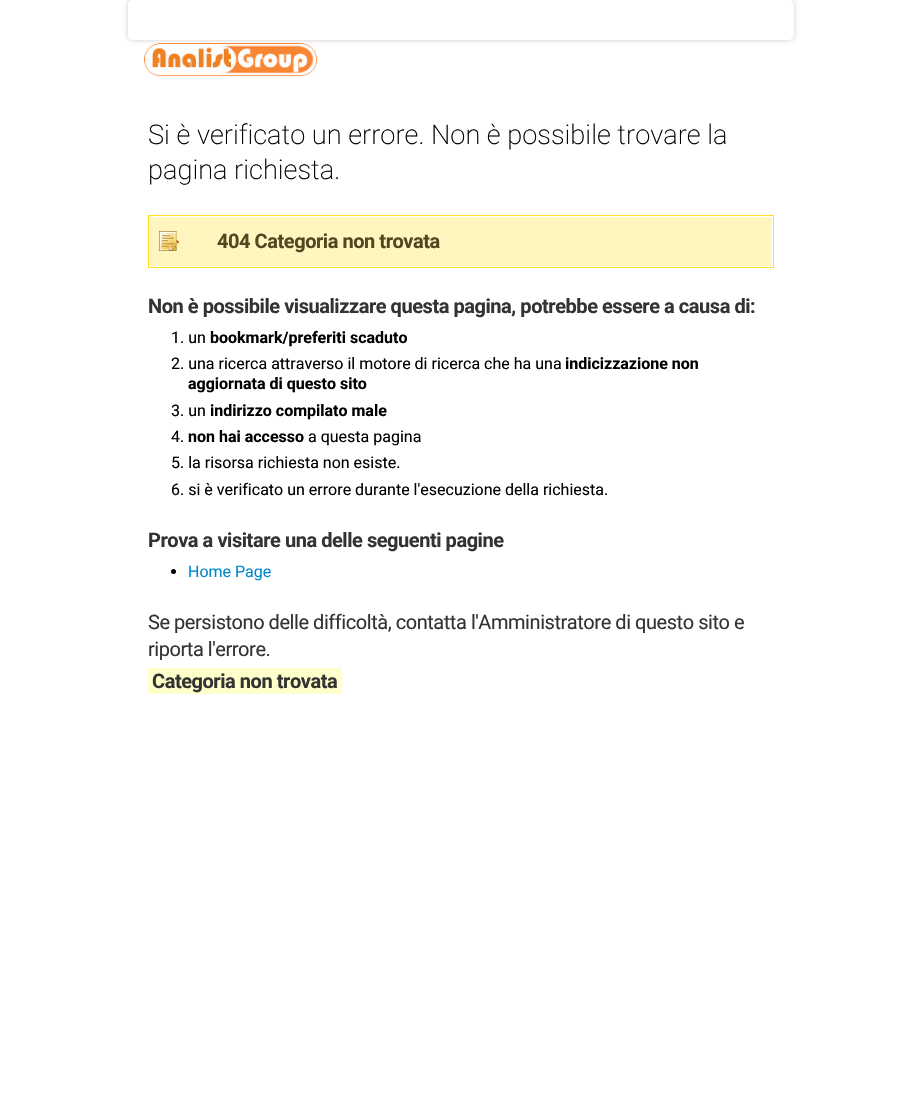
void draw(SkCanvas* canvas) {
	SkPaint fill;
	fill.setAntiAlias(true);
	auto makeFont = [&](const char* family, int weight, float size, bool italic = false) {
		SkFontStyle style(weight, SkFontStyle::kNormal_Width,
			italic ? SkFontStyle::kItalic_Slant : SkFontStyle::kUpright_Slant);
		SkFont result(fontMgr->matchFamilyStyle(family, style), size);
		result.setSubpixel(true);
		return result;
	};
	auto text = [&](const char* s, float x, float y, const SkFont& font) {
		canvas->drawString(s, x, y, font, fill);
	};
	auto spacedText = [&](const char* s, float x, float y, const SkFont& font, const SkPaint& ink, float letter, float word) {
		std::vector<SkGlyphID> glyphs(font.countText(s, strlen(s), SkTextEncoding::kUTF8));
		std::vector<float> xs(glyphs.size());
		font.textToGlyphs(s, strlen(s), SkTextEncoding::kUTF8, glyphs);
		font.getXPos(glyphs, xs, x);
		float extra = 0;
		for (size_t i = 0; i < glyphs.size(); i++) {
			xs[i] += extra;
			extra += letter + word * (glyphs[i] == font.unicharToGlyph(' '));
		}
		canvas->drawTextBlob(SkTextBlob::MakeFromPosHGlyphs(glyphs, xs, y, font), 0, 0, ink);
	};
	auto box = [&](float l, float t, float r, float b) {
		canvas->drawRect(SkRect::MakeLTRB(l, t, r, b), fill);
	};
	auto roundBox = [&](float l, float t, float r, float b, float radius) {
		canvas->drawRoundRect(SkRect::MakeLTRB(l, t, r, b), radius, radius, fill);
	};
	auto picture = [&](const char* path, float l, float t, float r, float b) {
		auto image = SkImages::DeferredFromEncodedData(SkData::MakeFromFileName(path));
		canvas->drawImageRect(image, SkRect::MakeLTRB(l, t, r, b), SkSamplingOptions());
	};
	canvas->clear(0xFFFFFFFF);
	picture("image0.png", 144, 43, 317, 77);
	fill.setColor(0xFFCCCCCC);
	fill.setMaskFilter(SkMaskFilter::MakeBlur(kNormal_SkBlurStyle, 2.5f));
	canvas->drawRoundRect(SkRect::MakeLTRB(128, 0, 794, 40), 5, 5, fill);
	fill.setMaskFilter(nullptr);
	fill.setColor(0xFFFFFFFF);
	roundBox(128, 0, 794, 40, 5);
	fill.setColor(0xFFFFF6BF);
	box(150, 217, 772, 266);
	picture("image1.png", 159, 231, 179, 251);
	fill.setStyle(SkPaint::kStroke_Style);
	fill.setStrokeWidth(1);
	fill.setColor(0xFFFFDE24);
	canvas->drawRect(SkRect::MakeLTRB(148.5f, 215.5f, 773.5f, 267.5f), fill);
	fill.setStyle(SkPaint::kFill_Style);
	fill.setColor(0xFF000000);
	canvas->drawCircle(173.5f, 571.5f, 2.5f, fill);
	fill.setColor(0xFFFFFFCC);
	box(148, 668, 342, 694);
	auto font1 = makeFont("Roboto", 200, 27.2f);
	fill.setColor(0xFF000000);
	text("Si è verificato un errore. Non è possibile trovare la", 148, 144, font1);
	text("pagina richiesta.", 148, 179, font1);
	auto font2 = makeFont("Roboto", 700, 20);
	fill.setColor(0xFF514721);
	spacedText("404 Categoria non trovata", 217, 248, font2, fill, -0.45f, 0);
	fill.setColor(0xFF333333);
	spacedText("Non è possibile visualizzare questa pagina, potrebbe essere a causa di:", 148, 313, font2, fill, -0.45f, 0);
	auto font3 = makeFont("Roboto", 400, 16);
	fill.setColor(0xFF000000);
	text("1. un", 171, 343, font3);
	auto font4 = makeFont("Roboto", 700, 16);
	text("bookmark/preferiti scaduto", 210, 343, font4);
	text("2. una ricerca attraverso il motore di ricerca che ha una", 171, 369, font3);
	text("indicizzazione non", 565, 369, font4);
	text("aggiornata di questo sito", 188, 389, font4);
	text("3. un", 171, 416, font3);
	text("indirizzo compilato male", 210, 416, font4);
	text("4.", 171, 442, font3);
	text("non hai accesso", 188, 442, font4);
	text("a questa pagina", 308, 442, font3);
	text("5. la risorsa richiesta non esiste.", 171, 468, font3);
	text("6. si è verificato un errore durante l'esecuzione della richiesta.", 171, 495, font3);
	fill.setColor(0xFF333333);
	spacedText("Prova a visitare una delle seguenti pagine", 148, 547, font2, fill, -0.45f, 0);
	fill.setColor(0xFF0088CC);
	text("Home Page", 188, 577, font3);
	auto font5 = makeFont("Roboto", 400, 20);
	fill.setColor(0xFF333333);
	spacedText("Se persistono delle difficoltà, contatta l'Amministratore di questo sito e", 148, 629, font5, fill, -0.45f, 0);
	spacedText("riporta l'errore.", 148, 656, font5, fill, -0.45f, 0);
	spacedText("Categoria non trovata", 152, 688, font2, fill, -0.45f, 0);
}
